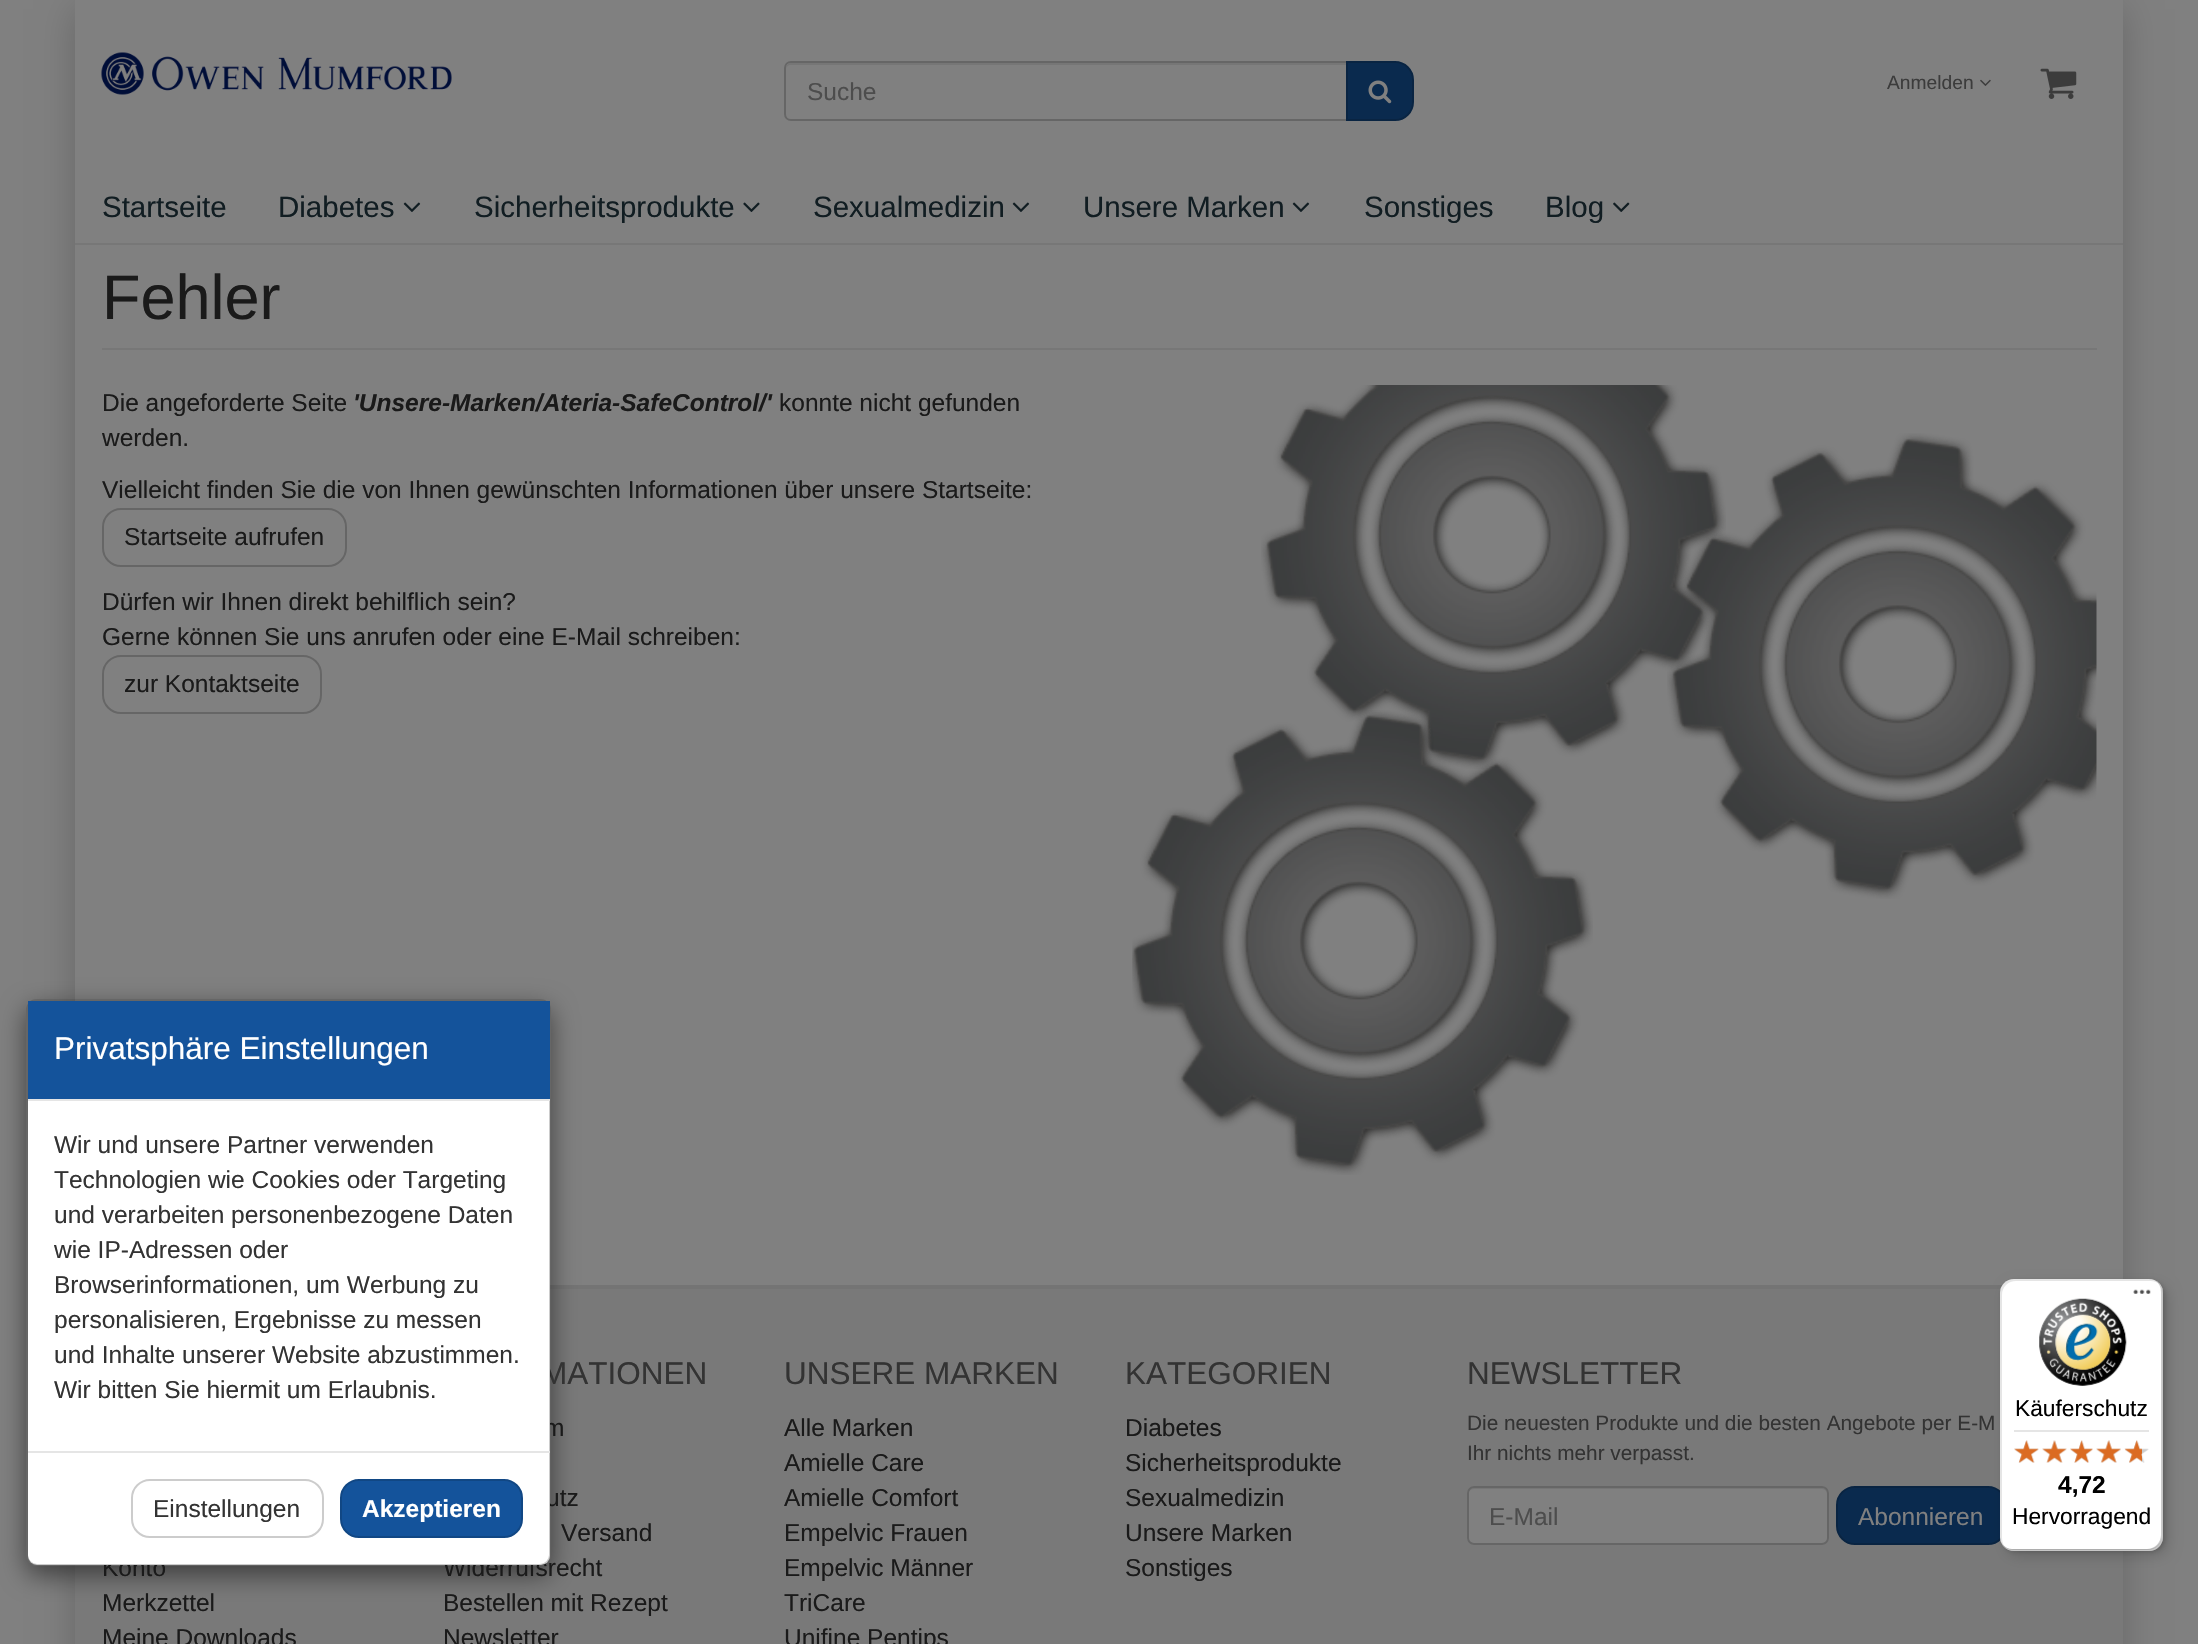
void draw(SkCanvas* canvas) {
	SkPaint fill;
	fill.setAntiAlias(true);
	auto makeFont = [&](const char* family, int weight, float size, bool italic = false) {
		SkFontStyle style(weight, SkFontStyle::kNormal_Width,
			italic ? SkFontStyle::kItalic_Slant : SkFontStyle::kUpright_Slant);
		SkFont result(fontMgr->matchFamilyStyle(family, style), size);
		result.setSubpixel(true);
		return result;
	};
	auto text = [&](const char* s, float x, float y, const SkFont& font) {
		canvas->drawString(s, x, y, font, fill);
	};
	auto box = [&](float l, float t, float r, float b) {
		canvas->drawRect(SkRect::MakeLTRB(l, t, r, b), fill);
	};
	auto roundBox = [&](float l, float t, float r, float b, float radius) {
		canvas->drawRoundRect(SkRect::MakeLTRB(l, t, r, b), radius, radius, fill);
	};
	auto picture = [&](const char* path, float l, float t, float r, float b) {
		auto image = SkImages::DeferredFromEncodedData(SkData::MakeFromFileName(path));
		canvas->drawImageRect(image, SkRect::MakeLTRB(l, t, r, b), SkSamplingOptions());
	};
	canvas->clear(0xFF808080);
	fill.setColor(0x33000000);
	fill.setMaskFilter(SkMaskFilter::MakeBlur(kNormal_SkBlurStyle, 17.5f));
	canvas->drawRect(SkRect::MakeLTRB(75, 9, 2123, 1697), fill);
	fill.setMaskFilter(nullptr);
	fill.setColor(0xFF808080);
	box(75, 0, 2123, 243);
	picture("image0.png", 101, 52, 452, 95);
	fill.setColor(0xFF767676);
	canvas->drawPath(SkPathBuilder().moveTo(791, 65).lineTo(1346, 65).lineTo(1346, 63).lineTo(791, 63).cubicTo(787, 63, 786, 67, 786, 70).cubicTo(786, 67, 788, 65, 791, 65).close().detach(), fill);
	fill.setStyle(SkPaint::kStroke_Style);
	fill.setStrokeWidth(2);
	fill.setColor(0xFF666666);
	canvas->drawPath(SkPathBuilder().moveTo(791, 62).lineTo(1347, 62).lineTo(1347, 120).lineTo(791, 120).cubicTo(787.5f, 120, 785, 117.5f, 785, 114).lineTo(785, 68).cubicTo(785, 64.5f, 787.5f, 62, 791, 62).close().detach(), fill);
	fill.setStyle(SkPaint::kFill_Style);
	fill.setColor(0xFF0A2A4E);
	canvas->drawPath(SkPathBuilder().moveTo(1347, 62).lineTo(1395, 62).cubicTo(1405, 62, 1413, 70, 1413, 80).lineTo(1413, 102).cubicTo(1413, 112, 1405, 120, 1395, 120).lineTo(1347, 120).close().detach(), fill);
	fill.setStyle(SkPaint::kStroke_Style);
	fill.setColor(0xFF092442);
	canvas->drawPath(SkPathBuilder().moveTo(1347, 62).lineTo(1395, 62).cubicTo(1405, 62, 1413, 70, 1413, 80).lineTo(1413, 102).cubicTo(1413, 112, 1405, 120, 1395, 120).lineTo(1347, 120).close().detach(), fill);
	picture("image1.png", 1368, 80, 1392, 104);
	picture("image2.png", 1980, 79, 1991, 86);
	picture("image3.png", 2040, 68, 2077, 99);
	fill.setStyle(SkPaint::kFill_Style);
	fill.setColor(0xFF777777);
	box(75, 243, 2123, 245);
	picture("image4.png", 403, 202, 421, 212);
	picture("image5.png", 743, 202, 760, 212);
	picture("image4.png", 1012, 202, 1030, 212);
	picture("image4.png", 1292, 202, 1310, 212);
	picture("image6.png", 1613, 202, 1630, 212);
	fill.setColor(0xFF808080);
	box(75, 245, 2123, 1285);
	fill.setColor(0xFF777777);
	box(102, 348, 2097, 350);
	fill.setStyle(SkPaint::kStroke_Style);
	fill.setColor(0xFF666666);
	canvas->drawRoundRect(SkRect::MakeLTRB(103, 509, 346, 566), 18, 18, fill);
	canvas->drawRoundRect(SkRect::MakeLTRB(103, 656, 321, 713), 18, 18, fill);
	picture("image7.png", 1261, 385, 1726, 769);
	picture("image8.png", 1667, 433, 2097, 899);
	picture("image9.png", 1132, 710, 1593, 1175);
	fill.setStyle(SkPaint::kFill_Style);
	fill.setColor(0xFF797979);
	box(75, 1289, 2123, 1644);
	fill.setColor(0xFF747474);
	box(550, 1285, 2003, 1289);
	canvas->save();
	canvas->clipPath(SkPathBuilder(SkPathFillType::kEvenOdd).moveTo(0, 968).lineTo(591, 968).lineTo(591, 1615).lineTo(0, 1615).close().moveTo(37, 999).lineTo(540, 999).cubicTo(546, 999, 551, 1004, 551, 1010).lineTo(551, 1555).cubicTo(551, 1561, 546, 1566, 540, 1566).lineTo(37, 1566).cubicTo(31, 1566, 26, 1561, 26, 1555).lineTo(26, 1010).cubicTo(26, 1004, 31, 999, 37, 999).close().detach(), true);
	fill.setColor(0x80000000);
	fill.setMaskFilter(SkMaskFilter::MakeBlur(kNormal_SkBlurStyle, 13));
	canvas->drawRoundRect(SkRect::MakeLTRB(26, 1008, 551, 1575), 11, 11, fill);
	fill.setMaskFilter(nullptr);
	canvas->restore();
	fill.setColor(0xFF808080);
	roundBox(1467, 1486, 1829, 1545, 7);
	fill.setColor(0xFF767676);
	canvas->drawPath(SkPathBuilder().moveTo(1474, 1489).lineTo(1822, 1489).cubicTo(1825, 1489, 1827, 1492, 1827, 1494).lineTo(1827, 1493).cubicTo(1827, 1490, 1825, 1488, 1822, 1488).lineTo(1473, 1488).cubicTo(1470, 1488, 1468, 1490, 1468, 1493).lineTo(1468, 1494).cubicTo(1468, 1492, 1471, 1489, 1474, 1489).close().detach(), fill);
	fill.setStyle(SkPaint::kStroke_Style);
	fill.setColor(0xFF666666);
	canvas->drawRoundRect(SkRect::MakeLTRB(1468, 1487, 1828, 1544), 6, 6, fill);
	fill.setStyle(SkPaint::kFill_Style);
	fill.setColor(0xFF0A2A4E);
	canvas->drawRoundRect(SkRect::MakeLTRB(1837, 1487, 2006, 1544), 18, 18, fill);
	fill.setStyle(SkPaint::kStroke_Style);
	fill.setColor(0xFF092442);
	canvas->drawRoundRect(SkRect::MakeLTRB(1837, 1487, 2006, 1544), 18, 18, fill);
	fill.setStyle(SkPaint::kFill_Style);
	fill.setColor(0x26000000);
	fill.setMaskFilter(SkMaskFilter::MakeBlur(kNormal_SkBlurStyle, 7));
	canvas->drawRoundRect(SkRect::MakeLTRB(2006, 1285, 2168, 1556), 14, 14, fill);
	fill.setMaskFilter(nullptr);
	fill.setMaskFilter(SkMaskFilter::MakeBlur(kNormal_SkBlurStyle, 2));
	canvas->drawRoundRect(SkRect::MakeLTRB(2002, 1281, 2165, 1552), 14, 14, fill);
	fill.setMaskFilter(nullptr);
	fill.setColor(0xFFFFFFFF);
	roundBox(2000, 1279, 2163, 1551, 14);
	fill.setColor(0x1A000000);
	canvas->drawPath(SkPathBuilder().moveTo(2016, 1281).lineTo(2151, 1281).cubicTo(2154, 1281, 2158, 1282, 2160, 1285).cubicTo(2158, 1281, 2154, 1279, 2149, 1279).lineTo(2014, 1279).cubicTo(2006, 1279, 2000, 1285, 2000, 1293).lineTo(2000, 1537).cubicTo(2000, 1543, 2003, 1547, 2008, 1550).cubicTo(2004, 1547, 2002, 1543, 2002, 1538).lineTo(2002, 1295).cubicTo(2002, 1287, 2008, 1281, 2016, 1281).close().detach(), fill);
	fill.setColor(0x33000000);
	canvas->drawPath(SkPathBuilder().moveTo(2002, 1544).cubicTo(2004, 1548, 2009, 1551, 2014, 1551).lineTo(2149, 1551).cubicTo(2157, 1551, 2163, 1545, 2163, 1537).lineTo(2163, 1293).cubicTo(2163, 1287, 2160, 1283, 2155, 1280).cubicTo(2159, 1283, 2161, 1287, 2161, 1292).lineTo(2161, 1535).cubicTo(2161, 1542, 2155, 1549, 2147, 1549).lineTo(2012, 1549).cubicTo(2008, 1549, 2005, 1547, 2002, 1544).close().detach(), fill);
	fill.setColor(0x33323232);
	canvas->drawPath(SkPathBuilder().moveTo(2001, 1543).cubicTo(2004, 1548, 2008, 1551, 2014, 1551).lineTo(2149, 1551).cubicTo(2157, 1551, 2163, 1545, 2163, 1537).lineTo(2163, 1293).cubicTo(2163, 1289, 2162, 1286, 2159, 1284).cubicTo(2161, 1286, 2162, 1289, 2162, 1292).lineTo(2162, 1535).cubicTo(2162, 1543, 2156, 1549, 2148, 1549).lineTo(2013, 1549).cubicTo(2008, 1549, 2004, 1547, 2001, 1543).close().detach(), fill);
	fill.setColor(0x4DFFFFFF);
	canvas->drawPath(SkPathBuilder().moveTo(2002, 1544).cubicTo(2004, 1548, 2009, 1551, 2014, 1551).lineTo(2149, 1551).cubicTo(2157, 1551, 2163, 1545, 2163, 1537).lineTo(2163, 1293).cubicTo(2163, 1288, 2161, 1284, 2158, 1282).cubicTo(2160, 1285, 2162, 1288, 2162, 1292).lineTo(2162, 1536).cubicTo(2162, 1543, 2156, 1550, 2148, 1550).lineTo(2013, 1550).cubicTo(2009, 1550, 2004, 1547, 2002, 1544).close().detach(), fill);
	picture("image10.png", 2133, 1289, 2151, 1294);
	picture("image11.png", 2039, 1298, 2127, 1386);
	fill.setColor(0xFFE5E5E5);
	box(2014, 1430, 2149, 1432);
	picture("image12.png", 2014, 1440, 2039, 1463);
	picture("image13.png", 2042, 1440, 2067, 1463);
	picture("image14.png", 2070, 1440, 2093, 1463);
	picture("image15.png", 2096, 1440, 2121, 1463);
	picture("image16.png", 2125, 1440, 2149, 1463);
	picture("image17.png", 2014, 1440, 2039, 1463);
	picture("image18.png", 2042, 1440, 2067, 1463);
	picture("image19.png", 2070, 1440, 2093, 1463);
	picture("image20.png", 2096, 1440, 2121, 1463);
	picture("image21.png", 2124, 1440, 2142, 1463);
	auto font1 = makeFont("Liberation Sans", 400, 24.5f);
	fill.setColor(0xFF4D4D4D);
	text("Suche", 807, 100, font1);
	auto font2 = makeFont("Liberation Sans", 400, 19.25f);
	fill.setColor(0xFF3C3C3C);
	text("Anmelden", 1887, 89, font2);
	auto font3 = makeFont("Liberation Sans", 400, 29.5f);
	fill.setColor(0xFF111D22);
	text("Startseite", 102, 217, font3);
	text("Diabetes", 278, 217, font3);
	text("Sicherheitsprodukte", 474, 217, font3);
	text("Sexualmedizin", 813, 217, font3);
	text("Unsere Marken", 1083, 217, font3);
	text("Sonstiges", 1364, 217, font3);
	text("Blog", 1545, 217, font3);
	auto font4 = makeFont("Liberation Sans", 400, 63);
	fill.setColor(0xFF1A1A1A);
	text("Fehler", 102, 319, font4);
	text("Die angeforderte Seite", 102, 411, font1);
	auto font5 = makeFont("Liberation Sans", 700, 24.5f, true);
	text("'Unsere-Marken/Ateria-SafeControl/'", 353, 411, font5);
	text("konnte nicht gefunden", 779, 411, font1);
	text("werden.", 102, 446, font1);
	text("Vielleicht finden Sie die von Ihnen gewünschten Informationen über unsere Startseite:", 102, 498, font1);
	text("Startseite aufrufen", 124, 545, font1);
	text("Dürfen wir Ihnen direkt behilflich sein?", 102, 610, font1);
	text("Gerne können Sie uns anrufen oder eine E-Mail schreiben:", 102, 645, font1);
	text("zur Kontaktseite", 124, 692, font1);
	auto font6 = makeFont("Liberation Sans", 400, 31.5f);
	fill.setColor(0xFF333333);
	text("MATIONEN", 541, 1384, font6);
	fill.setColor(0xFF1A1A1A);
	text("m", 544, 1436, font1);
	text("utz", 546, 1506, font1);
	text("Versand", 561, 1541, font1);
	text("Widerrufsrecht", 443, 1576, font1);
	text("Bestellen mit Rezept", 443, 1611, font1);
	text("Newsletter", 443, 1646, font1);
	fill.setColor(0xFF333333);
	text("UNSERE MARKEN", 784, 1384, font6);
	fill.setColor(0xFF1A1A1A);
	text("Alle Marken", 784, 1436, font1);
	text("Amielle Care", 784, 1471, font1);
	text("Amielle Comfort", 784, 1506, font1);
	text("Empelvic Frauen", 784, 1541, font1);
	text("Empelvic Männer", 784, 1576, font1);
	text("TriCare", 784, 1611, font1);
	text("Unifine Pentips", 784, 1646, font1);
	fill.setColor(0xFF333333);
	text("KATEGORIEN", 1125, 1384, font6);
	fill.setColor(0xFF1A1A1A);
	text("Diabetes", 1125, 1436, font1);
	text("Sicherheitsprodukte", 1125, 1471, font1);
	text("Sexualmedizin", 1125, 1506, font1);
	text("Unsere Marken", 1125, 1541, font1);
	text("Sonstiges", 1125, 1576, font1);
	text("Konto", 102, 1576, font1);
	fill.setColor(0xFFFFFFFF);
	roundBox(28, 1001, 550, 1565, 9);
	fill.setStyle(SkPaint::kStroke_Style);
	fill.setColor(0x33000000);
	canvas->drawRoundRect(SkRect::MakeLTRB(27, 1000, 550, 1565), 10, 10, fill);
	fill.setStyle(SkPaint::kFill_Style);
	fill.setColor(0xFF333333);
	text("Wir bitten Sie hiermit um Erlaubnis.", 54, 1398, font1);
	text("und Inhalte unserer Website abzustimmen.", 54, 1363, font1);
	text("personalisieren, Ergebnisse zu messen", 54, 1328, font1);
	text("Browserinformationen, um Werbung zu", 54, 1293, font1);
	text("wie IP-Adressen oder", 54, 1258, font1);
	text("und verarbeiten personenbezogene Daten", 54, 1223, font1);
	text("Technologien wie Cookies oder Targeting", 54, 1188, font1);
	text("Wir und unsere Partner verwenden", 54, 1153, font1);
	fill.setColor(0xFF14539B);
	canvas->drawRoundRect(SkRect::MakeLTRB(341, 1480, 522, 1537), 18, 18, fill);
	fill.setStyle(SkPaint::kStroke_Style);
	fill.setColor(0xFF114784);
	canvas->drawRoundRect(SkRect::MakeLTRB(341, 1480, 522, 1537), 18, 18, fill);
	auto font7 = makeFont("Liberation Sans", 700, 24.5f);
	fill.setStyle(SkPaint::kFill_Style);
	fill.setColor(0xFFFFFFFF);
	text("Akzeptieren", 362, 1517, font7);
	fill.setStyle(SkPaint::kStroke_Style);
	fill.setColor(0xFFCCCCCC);
	canvas->drawRoundRect(SkRect::MakeLTRB(132, 1480, 323, 1537), 18, 18, fill);
	fill.setStyle(SkPaint::kFill_Style);
	fill.setColor(0xFF333333);
	text("Einstellungen", 153, 1517, font1);
	fill.setColor(0xFF14539B);
	box(28, 1001, 550, 1099);
	fill.setColor(0xFFFFFFFF);
	text("Privatsphäre Einstellungen", 54, 1059, font6);
	fill.setColor(0xFFE5E5E5);
	box(28, 1451, 550, 1453);
	box(28, 1099, 550, 1101);
	fill.setColor(0xFF1A1A1A);
	text("Merkzettel", 102, 1611, font1);
	text("Meine Downloads", 102, 1646, font1);
	fill.setColor(0xFF333333);
	text("NEWSLETTER", 1467, 1384, font6);
	auto font8 = makeFont("Liberation Sans", 400, 20.8f);
	text("Die neuesten Produkte und die besten Angebote per E-M", 1467, 1430, font8);
	text("Ihr nichts mehr verpasst.", 1467, 1460, font8);
	fill.setColor(0xFF4D4D4D);
	text("E-Mail", 1489, 1525, font1);
	fill.setColor(0xFF808080);
	text("Abonnieren", 1858, 1525, font1);
	auto font9 = makeFont("Liberation Sans", 400, 22.75f);
	fill.setColor(0xFF000000);
	text("Käuferschutz", 2015, 1416, font9);
	text("4,72", 2058, 1493, font7);
	text("Hervorragend", 2012, 1524, font9);
}
